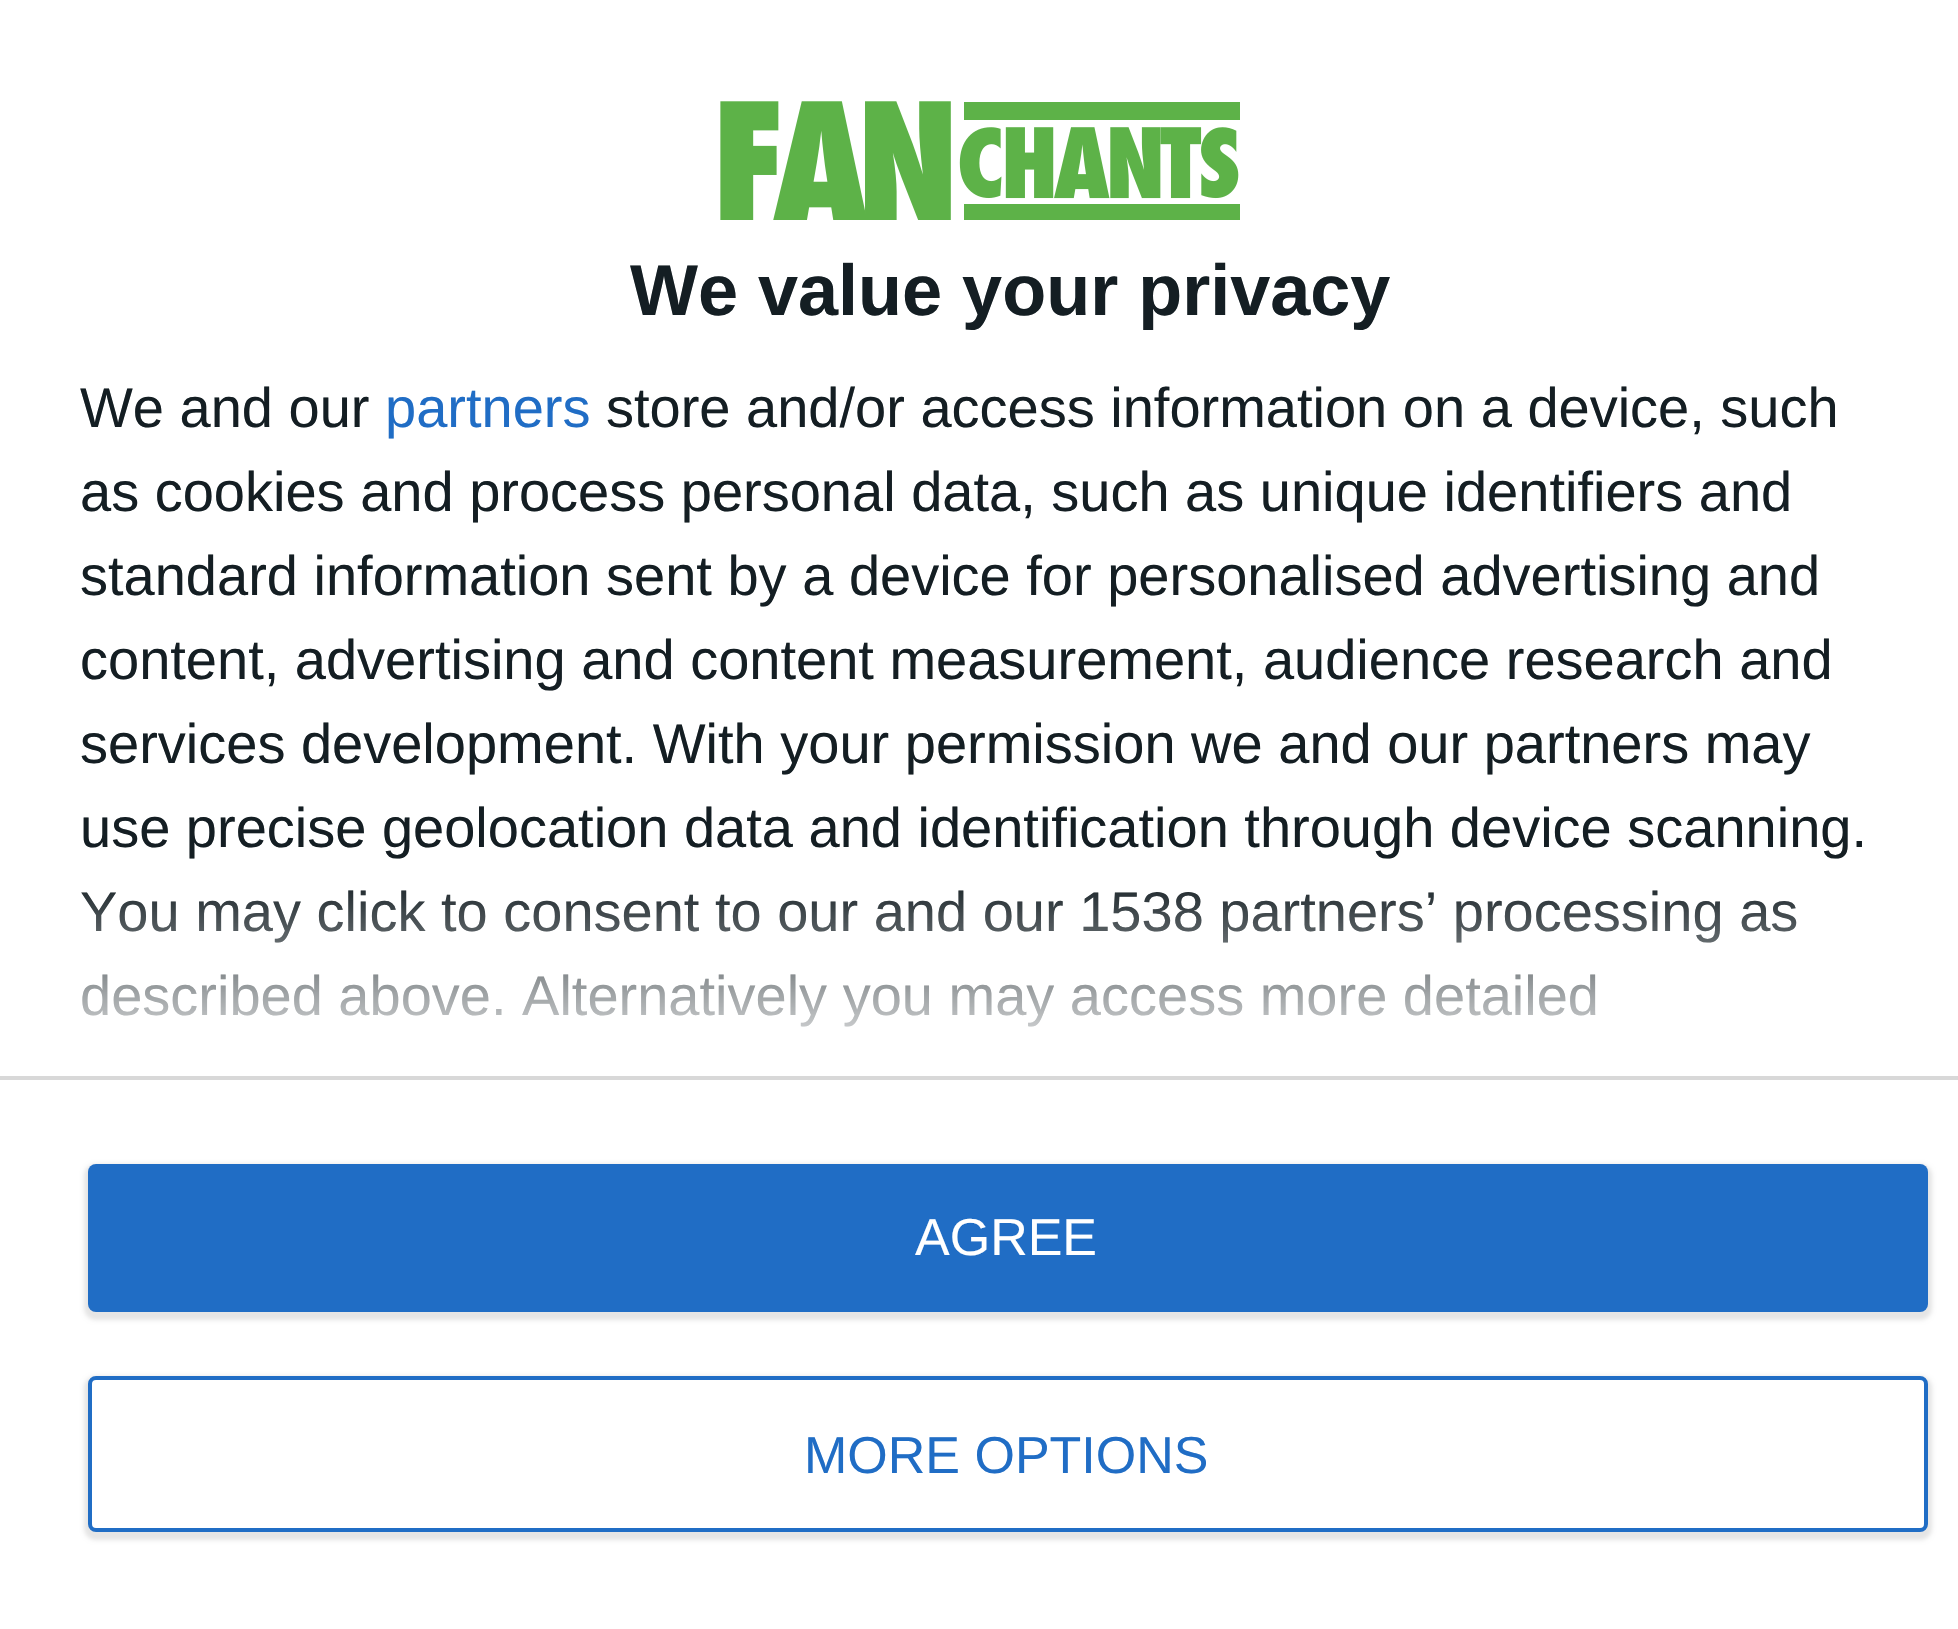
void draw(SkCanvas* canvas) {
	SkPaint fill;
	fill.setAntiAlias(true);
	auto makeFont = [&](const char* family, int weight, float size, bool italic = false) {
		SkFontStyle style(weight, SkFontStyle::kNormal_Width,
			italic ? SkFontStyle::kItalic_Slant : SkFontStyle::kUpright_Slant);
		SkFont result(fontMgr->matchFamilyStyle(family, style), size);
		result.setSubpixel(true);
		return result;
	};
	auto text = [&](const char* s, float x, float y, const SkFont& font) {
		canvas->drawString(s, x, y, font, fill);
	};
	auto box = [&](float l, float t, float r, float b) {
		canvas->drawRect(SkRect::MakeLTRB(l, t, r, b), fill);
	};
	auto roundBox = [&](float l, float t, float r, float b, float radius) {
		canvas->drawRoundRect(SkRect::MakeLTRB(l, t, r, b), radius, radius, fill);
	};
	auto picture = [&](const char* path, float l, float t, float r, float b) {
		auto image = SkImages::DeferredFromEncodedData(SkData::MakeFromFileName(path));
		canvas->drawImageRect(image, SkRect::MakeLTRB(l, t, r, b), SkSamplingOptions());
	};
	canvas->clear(0xFFFFFFFF);
	picture("image0.png", 720, 101, 1240, 220);
	fill.setColor(0xFFD8D8D8);
	box(0, 1076, 1958, 1080);
	fill.setColor(0x1A000000);
	fill.setMaskFilter(SkMaskFilter::MakeBlur(kNormal_SkBlurStyle, 2));
	canvas->drawRoundRect(SkRect::MakeLTRB(84, 1164, 1932, 1320), 12, 12, fill);
	fill.setMaskFilter(nullptr);
	fill.setColor(0xFF206DC5);
	roundBox(88, 1164, 1928, 1312, 8);
	fill.setColor(0x1A000000);
	fill.setMaskFilter(SkMaskFilter::MakeBlur(kNormal_SkBlurStyle, 2));
	canvas->drawRoundRect(SkRect::MakeLTRB(84, 1376, 1932, 1540), 12, 12, fill);
	fill.setMaskFilter(nullptr);
	fill.setColor(0xFFFFFFFF);
	canvas->drawRoundRect(SkRect::MakeLTRB(90, 1378, 1926, 1530), 6, 6, fill);
	fill.setStyle(SkPaint::kStroke_Style);
	fill.setStrokeWidth(4);
	fill.setColor(0xFF206DC5);
	canvas->drawRoundRect(SkRect::MakeLTRB(90, 1378, 1926, 1530), 6, 6, fill);
	auto font1 = makeFont("Liberation Sans", 700, 72);
	fill.setStyle(SkPaint::kFill_Style);
	fill.setColor(0xFF141E23);
	text("We value your privacy", 630, 315, font1);
	auto font2 = makeFont("Liberation Sans", 400, 56);
	text("We and our", 80, 427, font2);
	fill.setColor(0xFF206DC5);
	text("partners", 385, 427, font2);
	fill.setColor(0xFF141E23);
	text("store and/or access information on a device, such", 606, 427, font2);
	text("as cookies and process personal data, such as unique identifiers and", 80, 511, font2);
	text("standard information sent by a device for personalised advertising and", 80, 595, font2);
	text("content, advertising and content measurement, audience research and", 80, 679, font2);
	text("services development. With your permission we and our partners may", 80, 763, font2);
	text("use precise geolocation data and identification through device scanning.", 80, 847, font2);
	text("You may click to consent to our and our 1538 partners’ processing as", 80, 931, font2);
	text("described above. Alternatively you may access more detailed", 80, 1015, font2);
	{
		const SkColor colors[] = {0xFFFFFFFF, 0x00FFFFFF};
		const float stops[] = {0, 1};
		const SkPoint ends[] = {{980, 1076}, {980, 876}};
		fill.setShader(SkGradientShader::MakeLinear(ends, colors, stops, 2, SkTileMode::kClamp));
		fill.setAlpha(255);
	}
	box(81, 890, 1797, 1027);
	auto font3 = makeFont("Liberation Sans", 400, 52);
	fill.setShader(nullptr);
	fill.setColor(0xFFFFFFFF);
	text("AGREE", 915, 1255, font3);
	fill.setColor(0xFF206DC5);
	text("MORE OPTIONS", 804, 1473, font3);
}
